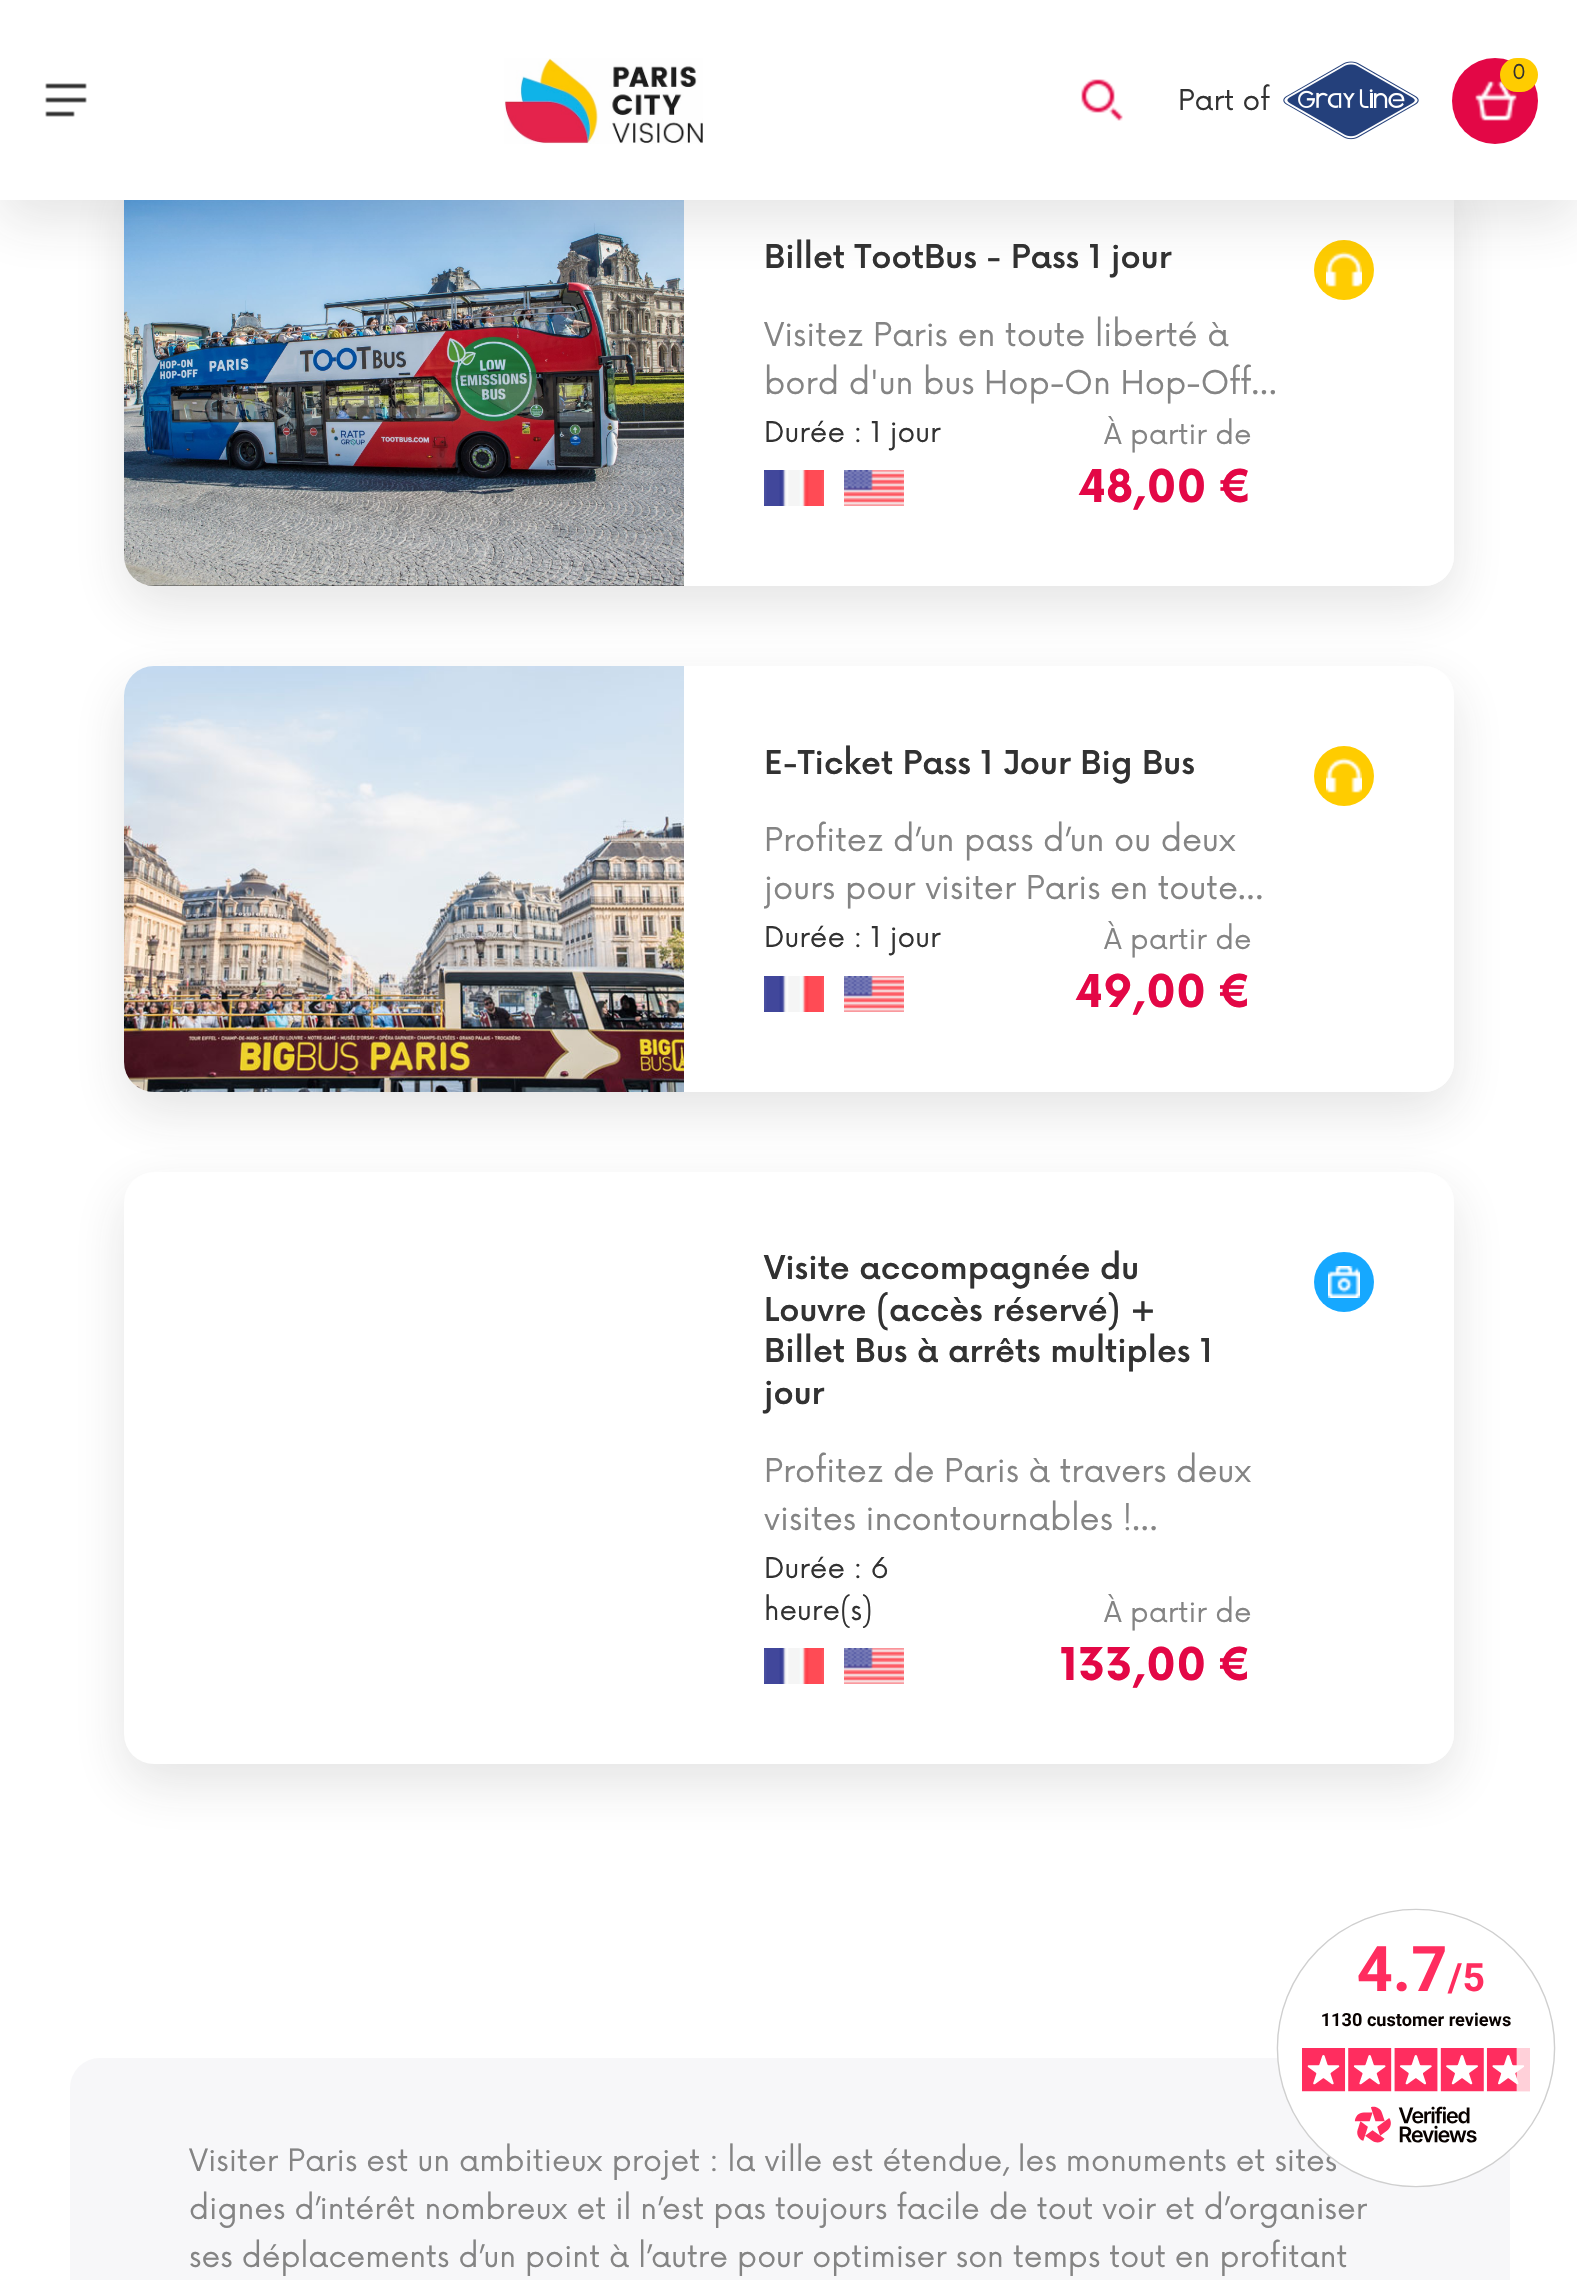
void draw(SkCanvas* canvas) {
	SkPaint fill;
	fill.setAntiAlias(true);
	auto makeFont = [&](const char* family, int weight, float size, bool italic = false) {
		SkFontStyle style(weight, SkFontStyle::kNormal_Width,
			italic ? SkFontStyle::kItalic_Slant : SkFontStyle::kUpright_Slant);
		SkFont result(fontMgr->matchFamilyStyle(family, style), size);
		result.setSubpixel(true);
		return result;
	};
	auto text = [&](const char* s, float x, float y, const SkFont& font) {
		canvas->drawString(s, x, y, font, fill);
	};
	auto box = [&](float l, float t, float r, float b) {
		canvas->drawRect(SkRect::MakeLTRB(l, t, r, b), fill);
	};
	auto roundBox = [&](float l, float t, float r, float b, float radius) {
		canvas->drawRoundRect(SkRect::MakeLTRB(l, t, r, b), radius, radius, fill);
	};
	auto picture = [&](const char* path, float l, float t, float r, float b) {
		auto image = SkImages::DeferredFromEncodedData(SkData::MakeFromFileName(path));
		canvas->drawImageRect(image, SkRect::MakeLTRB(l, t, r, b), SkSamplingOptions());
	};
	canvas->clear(0xFFFFFFFF);
	fill.setColor(0x21323232);
	fill.setMaskFilter(SkMaskFilter::MakeBlur(kNormal_SkBlurStyle, 26));
	canvas->drawRoundRect(SkRect::MakeLTRB(124, 180, 1454, 606), 30, 30, fill);
	fill.setMaskFilter(nullptr);
	fill.setColor(0xFFFFFFFF);
	roundBox(124, 160, 1454, 586, 30);
	picture("image5.png", 124, 200, 684, 586);
	canvas->drawPath(SkPathBuilder().moveTo(684, 160).lineTo(1424, 160).cubicTo(1440.5f, 160, 1454, 173.5f, 1454, 190).lineTo(1454, 556).cubicTo(1454, 572.5f, 1440.5f, 586, 1424, 586).lineTo(684, 586).close().detach(), fill);
	fill.setColor(0xFFFFCC00);
	canvas->drawCircle(1344, 270, 30, fill);
	picture("image8.png", 1326, 252, 1362, 287);
	fill.setColor(0x21323232);
	fill.setMaskFilter(SkMaskFilter::MakeBlur(kNormal_SkBlurStyle, 26));
	canvas->drawRect(SkRect::MakeLTRB(0, 20, 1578, 220), fill);
	fill.setMaskFilter(nullptr);
	fill.setColor(0xFFFFFFFF);
	box(0, 0, 1577, 200);
	fill.setColor(0xFFE30746);
	canvas->drawCircle(1495, 101, 43, fill);
	picture("image0.png", 1475, 81, 1517, 121);
	fill.setColor(0xFFFFCC00);
	roundBox(1500, 58, 1538, 92, 17);
	picture("image1.png", 45, 83, 87, 117);
	picture("image2.png", 504, 58, 703, 144);
	picture("image3.png", 1081, 79, 1123, 121);
	picture("image4.png", 1283, 61, 1419, 140);
	picture("image6.png", 764, 470, 824, 506);
	picture("image7.png", 844, 470, 904, 506);
	fill.setColor(0x21323232);
	fill.setMaskFilter(SkMaskFilter::MakeBlur(kNormal_SkBlurStyle, 26));
	canvas->drawRoundRect(SkRect::MakeLTRB(124, 686, 1454, 1112), 30, 30, fill);
	fill.setMaskFilter(nullptr);
	fill.setColor(0xFFFFFFFF);
	roundBox(124, 666, 1454, 1092, 30);
	picture("image9.png", 124, 666, 684, 1092);
	canvas->drawPath(SkPathBuilder().moveTo(684, 666).lineTo(1424, 666).cubicTo(1440.5f, 666, 1454, 679.5f, 1454, 696).lineTo(1454, 1062).cubicTo(1454, 1078.5f, 1440.5f, 1092, 1424, 1092).lineTo(684, 1092).close().detach(), fill);
	picture("image6.png", 764, 976, 824, 1012);
	picture("image7.png", 844, 976, 904, 1012);
	fill.setColor(0xFFFFCC00);
	canvas->drawCircle(1344, 776, 30, fill);
	picture("image8.png", 1326, 758, 1362, 793);
	fill.setColor(0x21323232);
	fill.setMaskFilter(SkMaskFilter::MakeBlur(kNormal_SkBlurStyle, 26));
	canvas->drawRoundRect(SkRect::MakeLTRB(124, 1192, 1454, 1784), 30, 30, fill);
	fill.setMaskFilter(nullptr);
	fill.setColor(0xFFFFFFFF);
	roundBox(124, 1172, 1454, 1764, 30);
	canvas->drawPath(SkPathBuilder().moveTo(684, 1172).lineTo(1424, 1172).cubicTo(1440.5f, 1172, 1454, 1185.5f, 1454, 1202).lineTo(1454, 1734).cubicTo(1454, 1750.5f, 1440.5f, 1764, 1424, 1764).lineTo(684, 1764).close().detach(), fill);
	picture("image6.png", 764, 1648, 824, 1684);
	picture("image7.png", 844, 1648, 904, 1684);
	fill.setColor(0xFF16A8FF);
	canvas->drawCircle(1344, 1282, 30, fill);
	picture("image10.png", 1328, 1266, 1360, 1298);
	fill.setColor(0xFFF7F7F9);
	roundBox(70, 2058, 1510, 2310, 30);
	auto font1 = makeFont("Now", 400, 20);
	fill.setColor(0xFF323232);
	text("0", 1512, 79, font1);
	auto font2 = makeFont("Now", 400, 28);
	text("Part of", 1178, 110, font2);
	auto font3 = makeFont("Now", 500, 32);
	text("Billet TootBus - Pass 1 jour", 764, 268, font3);
	auto font4 = makeFont("Now", 400, 32);
	fill.setColor(0xFF848484);
	text("Visitez Paris en toute liberté à", 764, 346, font4);
	text("bord d'un bus Hop-On Hop-Off…", 764, 394, font4);
	fill.setColor(0xFF323232);
	text("Durée : 1 jour", 764, 442, font2);
	fill.setColor(0xFF848484);
	text("À partir de", 1104, 444, font2);
	auto font5 = makeFont("Now", 700, 44);
	fill.setColor(0xFFE30746);
	text("48,00 €", 1078, 502, font5);
	fill.setColor(0xFF323232);
	text("E-Ticket Pass 1 Jour Big Bus", 764, 774, font3);
	fill.setColor(0xFF848484);
	text("Profitez d’un pass d’un ou deux", 764, 851, font4);
	canvas->save();
	canvas->clipRect(SkRect::MakeLTRB(764, 818, 1282, 918));
	text("jours pour visiter Paris en toute", 764, 899, font4);
	canvas->restore();
	text("…", 1238, 899, font4);
	fill.setColor(0xFF323232);
	text("Durée : 1 jour", 764, 947, font2);
	fill.setColor(0xFF848484);
	text("À partir de", 1104, 949, font2);
	fill.setColor(0xFFE30746);
	text("49,00 €", 1075, 1007, font5);
	fill.setColor(0xFF323232);
	text("Visite accompagnée du", 764, 1279, font3);
	text("Louvre (accès réservé) +", 764, 1321, font3);
	text("Billet Bus à arrêts multiples 1", 764, 1362, font3);
	text("jour", 764, 1404, font3);
	fill.setColor(0xFF848484);
	text("Profitez de Paris à travers deux", 764, 1482, font4);
	text("visites incontournables !…", 764, 1530, font4);
	fill.setColor(0xFF323232);
	text("Durée : 6", 764, 1578, font2);
	text("heure(s)", 764, 1620, font2);
	fill.setColor(0xFF848484);
	text("À partir de", 1104, 1622, font2);
	fill.setColor(0xFFE30746);
	text("133,00 €", 1060, 1680, font5);
	auto font6 = makeFont("Now", 400, 30);
	fill.setColor(0xFF848484);
	text("Visiter Paris est un ambitieux projet : la ville est étendue, les monuments et sites", 189, 2171, font6);
	text("dignes d’intérêt nombreux et il n’est pas toujours facile de tout voir et d’organiser", 189, 2219, font6);
	text("ses déplacements d’un point à l’autre pour optimiser son temps tout en profitant", 189, 2267, font6);
	picture("image11.png", 1276, 1908, 1556, 2188);
}
